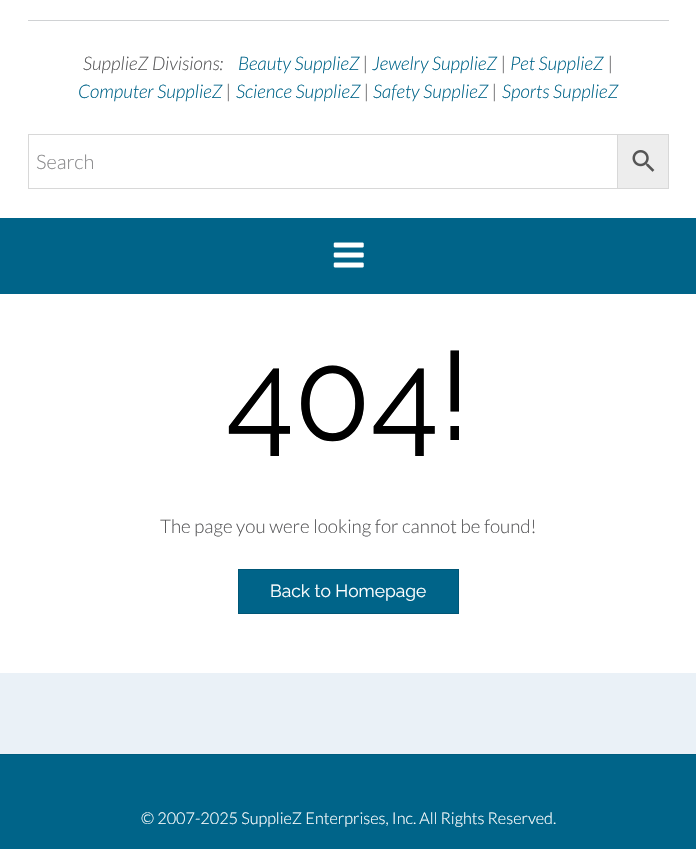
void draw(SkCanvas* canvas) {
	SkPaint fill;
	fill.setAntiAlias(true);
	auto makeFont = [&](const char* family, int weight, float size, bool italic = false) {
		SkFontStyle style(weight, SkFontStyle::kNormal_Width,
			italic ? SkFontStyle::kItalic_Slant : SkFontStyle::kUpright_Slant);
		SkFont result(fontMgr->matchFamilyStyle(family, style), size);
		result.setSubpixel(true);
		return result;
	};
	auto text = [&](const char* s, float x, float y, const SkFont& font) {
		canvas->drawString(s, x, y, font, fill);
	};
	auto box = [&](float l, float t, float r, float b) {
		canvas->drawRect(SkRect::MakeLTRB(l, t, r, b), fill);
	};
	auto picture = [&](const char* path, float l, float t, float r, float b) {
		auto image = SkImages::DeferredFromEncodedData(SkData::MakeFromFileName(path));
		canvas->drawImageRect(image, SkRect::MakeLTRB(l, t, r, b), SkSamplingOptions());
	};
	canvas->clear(0xFFFFFFFF);
	fill.setColor(0xFFD0D2D4);
	box(28, 20, 669, 21);
	fill.setColor(0xFFEDEDED);
	box(618, 135, 668, 188);
	fill.setStyle(SkPaint::kStroke_Style);
	fill.setStrokeWidth(1);
	fill.setColor(0xFFD8D8D8);
	canvas->drawRect(SkRect::MakeLTRB(616.5f, 134.5f, 668.5f, 188.5f), fill);
	fill.setStyle(SkPaint::kFill_Style);
	fill.setColor(0xFFFFFFFF);
	box(616, 135, 617, 188);
	fill.setStyle(SkPaint::kStroke_Style);
	fill.setColor(0xFFD8D8D8);
	canvas->drawRect(SkRect::MakeLTRB(28.5f, 134.5f, 617.5f, 188.5f), fill);
	picture("image0.png", 632, 150, 655, 172);
	fill.setStyle(SkPaint::kFill_Style);
	fill.setColor(0xFF006489);
	box(0, 218, 696, 294);
	picture("image1.png", 333, 242, 364, 268);
	canvas->drawRect(SkRect::MakeLTRB(238.5f, 569.5f, 458.5f, 613.5f), fill);
	fill.setStyle(SkPaint::kStroke_Style);
	fill.setColor(0xFF005676);
	canvas->drawRect(SkRect::MakeLTRB(238.5f, 569.5f, 458.5f, 613.5f), fill);
	fill.setStyle(SkPaint::kFill_Style);
	fill.setColor(0xFFEAF1F7);
	box(0, 673, 696, 754);
	fill.setColor(0xFF006489);
	box(0, 755, 696, 849);
	fill.setColor(0xFF005C7E);
	box(0, 754, 696, 755);
	auto font1 = makeFont("Lato", 300, 18.75f, true);
	fill.setColor(0xFF58585A);
	text("SupplieZ Divisions:", 83, 70, font1);
	fill.setColor(0xFF006489);
	text("Beauty SupplieZ", 238, 70, font1);
	fill.setColor(0xFF58585A);
	text("|", 363, 70, font1);
	fill.setColor(0xFF006489);
	text("Jewelry SupplieZ", 372, 70, font1);
	fill.setColor(0xFF58585A);
	text("|", 501, 70, font1);
	fill.setColor(0xFF006489);
	text("Pet SupplieZ", 510, 70, font1);
	fill.setColor(0xFF58585A);
	text("|", 608, 70, font1);
	fill.setColor(0xFF006489);
	text("Computer SupplieZ", 78, 98, font1);
	fill.setColor(0xFF58585A);
	text("|", 226, 98, font1);
	fill.setColor(0xFF006489);
	text("Science SupplieZ", 236, 98, font1);
	fill.setColor(0xFF58585A);
	text("|", 364, 98, font1);
	fill.setColor(0xFF006489);
	text("Safety SupplieZ", 373, 98, font1);
	fill.setColor(0xFF58585A);
	text("|", 492, 98, font1);
	fill.setColor(0xFF006489);
	text("Sports SupplieZ", 502, 98, font1);
	auto font2 = makeFont("Lato", 300, 20);
	fill.setColor(0xFF8A8A8C);
	text("Search", 36, 169, font2);
	auto font3 = makeFont("Raleway", 400, 125);
	fill.setColor(0xFF000000);
	text("404!", 226, 440, font3);
	auto font4 = makeFont("Lato", 300, 18.75f);
	fill.setColor(0xFF58585A);
	text("The page you were looking for cannot be found!", 160, 533, font4);
	auto font5 = makeFont("Raleway", 400, 17.5f);
	fill.setColor(0xFFFFFFFF);
	text("Back to Homepage", 270, 597, font5);
	auto font6 = makeFont("Lato", 300, 16.25f);
	text("© 2007-2025 SupplieZ Enterprises, Inc. All Rights Reserved.", 141, 824, font6);
}
